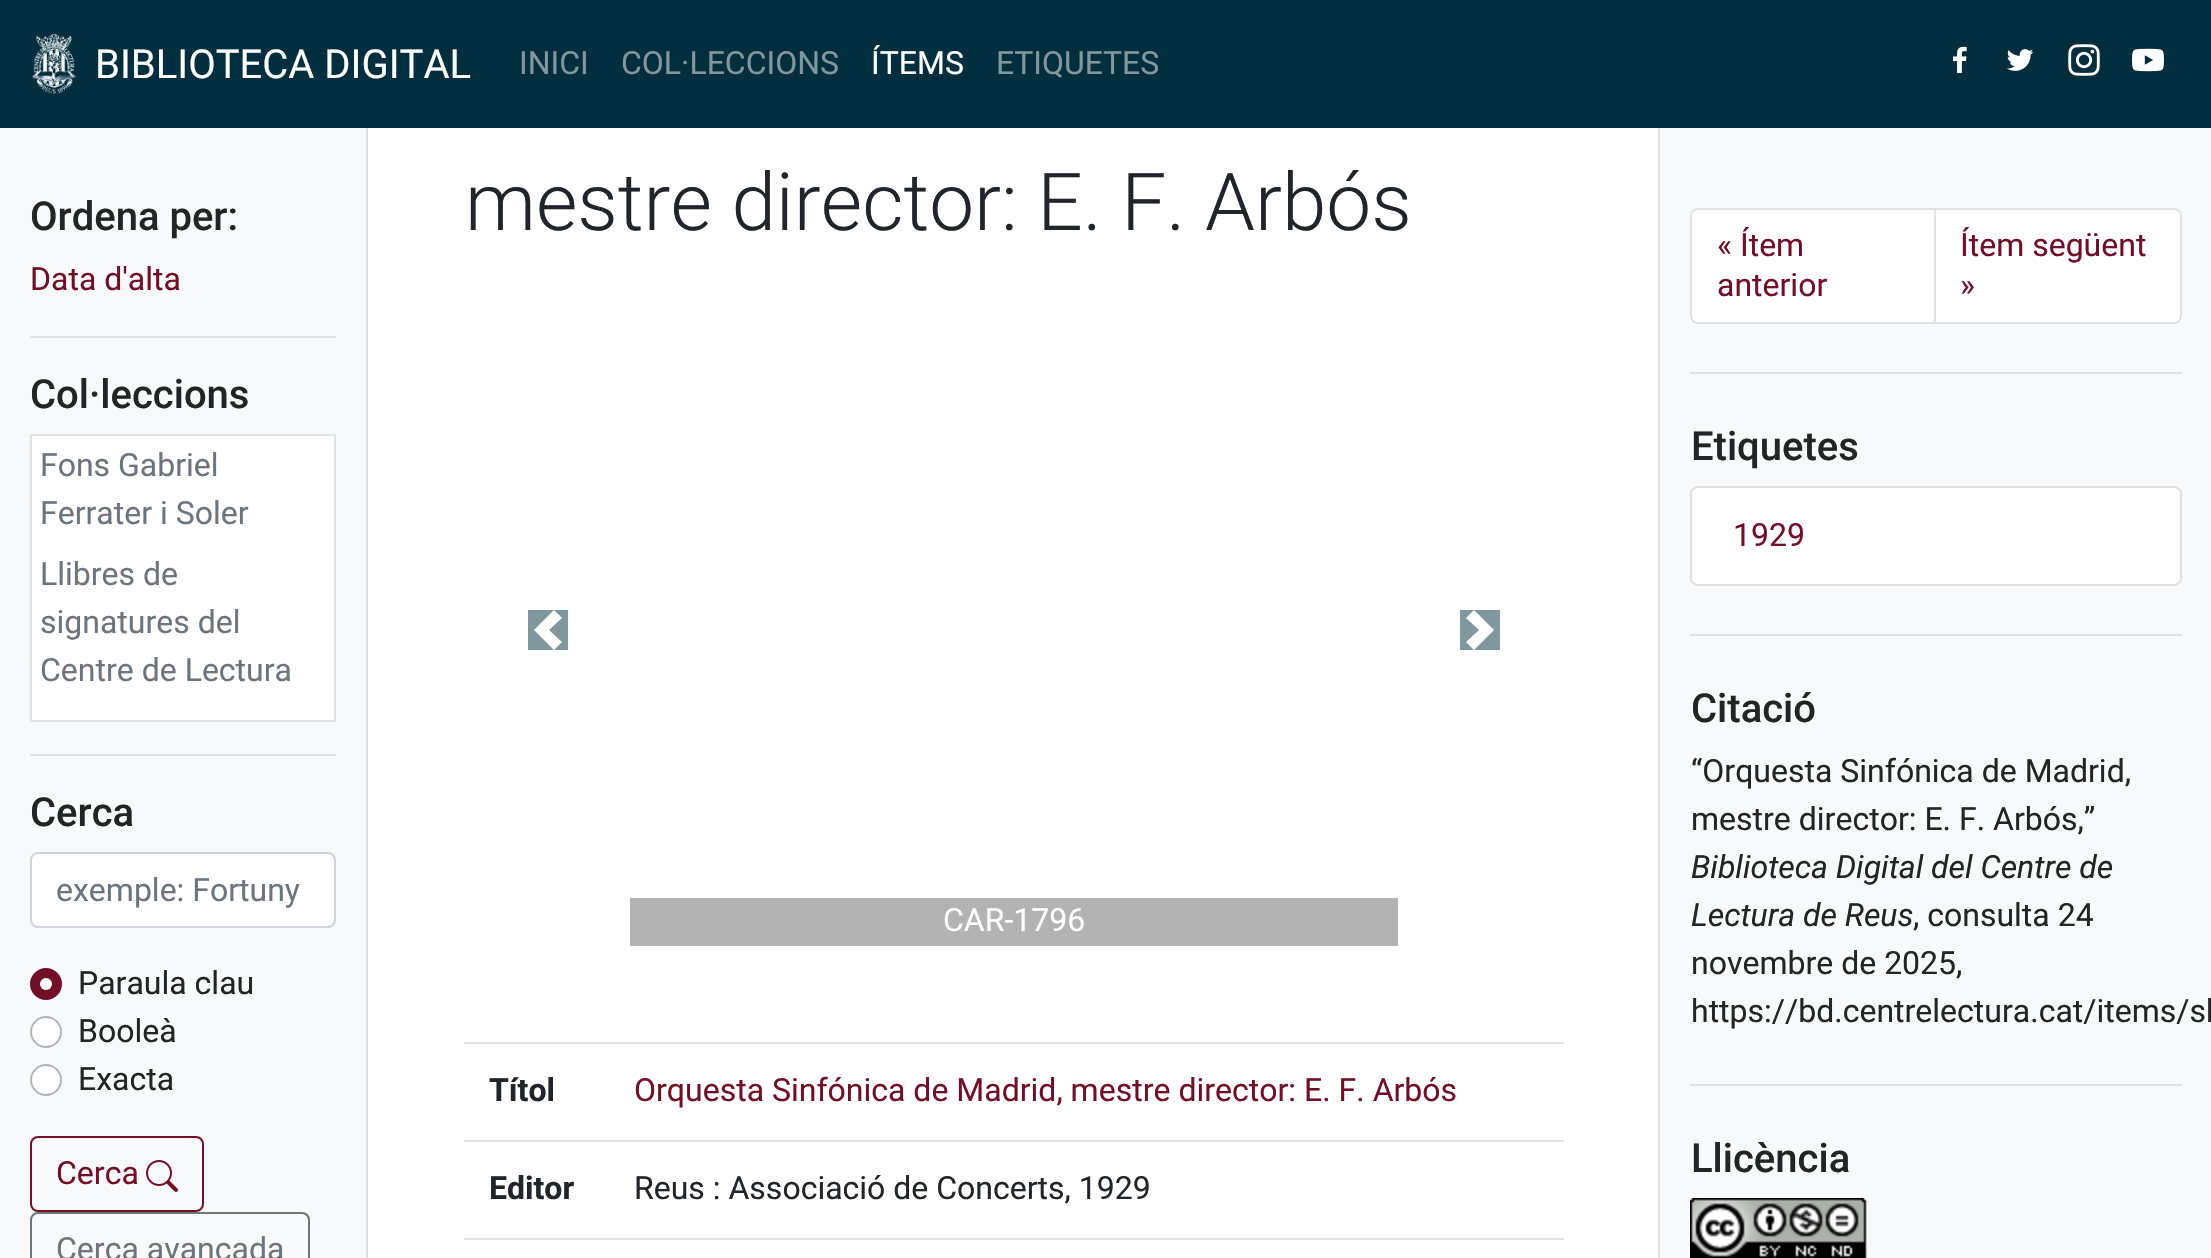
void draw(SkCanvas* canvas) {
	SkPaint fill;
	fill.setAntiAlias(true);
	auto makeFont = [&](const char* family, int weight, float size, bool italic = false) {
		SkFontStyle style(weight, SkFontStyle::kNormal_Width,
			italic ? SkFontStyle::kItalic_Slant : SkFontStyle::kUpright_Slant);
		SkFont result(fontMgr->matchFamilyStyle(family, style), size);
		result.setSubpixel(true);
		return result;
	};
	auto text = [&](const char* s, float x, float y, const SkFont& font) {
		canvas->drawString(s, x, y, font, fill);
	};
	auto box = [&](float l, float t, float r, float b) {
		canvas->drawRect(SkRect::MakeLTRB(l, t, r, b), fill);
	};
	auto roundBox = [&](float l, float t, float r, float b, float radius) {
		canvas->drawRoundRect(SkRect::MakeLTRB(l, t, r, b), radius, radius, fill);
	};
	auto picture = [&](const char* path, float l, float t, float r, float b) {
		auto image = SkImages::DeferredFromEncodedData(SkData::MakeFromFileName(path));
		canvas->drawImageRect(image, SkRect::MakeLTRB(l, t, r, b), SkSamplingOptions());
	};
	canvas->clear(0xFFFFFFFF);
	fill.setColor(0xFF022E3D);
	box(0, 0, 2211, 128);
	picture("image0.png", 32, 34, 76, 94);
	picture("image1.png", 1953, 46, 1967, 74);
	picture("image2.png", 2006, 49, 2034, 71);
	picture("image3.png", 2068, 44, 2100, 76);
	picture("image4.png", 2132, 48, 2164, 72);
	fill.setColor(0xFFF8F9FA);
	box(0, 128, 366, 1258);
	fill.setColor(0xFFDFE0E1);
	box(366, 128, 368, 1258);
	fill.setColor(0xFFDEE2E6);
	box(30, 336, 336, 338);
	fill.setColor(0xFFFFFFFF);
	canvas->drawRect(SkRect::MakeLTRB(31, 435, 335, 721), fill);
	fill.setStyle(SkPaint::kStroke_Style);
	fill.setStrokeWidth(2);
	fill.setColor(0xFFDEE2E6);
	canvas->drawRect(SkRect::MakeLTRB(31, 435, 335, 721), fill);
	fill.setStyle(SkPaint::kFill_Style);
	box(30, 754, 336, 756);
	fill.setColor(0xFFFFFFFF);
	canvas->drawRoundRect(SkRect::MakeLTRB(31, 853, 335, 927), 7, 7, fill);
	fill.setStyle(SkPaint::kStroke_Style);
	fill.setColor(0xFFCED4DA);
	canvas->drawRoundRect(SkRect::MakeLTRB(31, 853, 335, 927), 7, 7, fill);
	fill.setStyle(SkPaint::kFill_Style);
	fill.setColor(0xFF710F26);
	canvas->drawCircle(46, 984, 15, fill);
	fill.setStyle(SkPaint::kStroke_Style);
	canvas->drawCircle(46, 984, 15, fill);
	fill.setStyle(SkPaint::kFill_Style);
	fill.setColor(0xFFFFFFFF);
	canvas->drawCircle(46, 984, 6, fill);
	canvas->drawCircle(46, 1032, 15, fill);
	fill.setStyle(SkPaint::kStroke_Style);
	fill.setColor(0xFFADB5BD);
	canvas->drawCircle(46, 1032, 15, fill);
	fill.setStyle(SkPaint::kFill_Style);
	fill.setColor(0xFFFFFFFF);
	canvas->drawCircle(46, 1080, 15, fill);
	fill.setStyle(SkPaint::kStroke_Style);
	fill.setColor(0xFFADB5BD);
	canvas->drawCircle(46, 1080, 15, fill);
	fill.setColor(0xFF710F26);
	canvas->drawRoundRect(SkRect::MakeLTRB(31, 1137, 203, 1211), 7, 7, fill);
	picture("image5.png", 146, 1160, 178, 1192);
	fill.setColor(0xFF6C757D);
	canvas->drawRoundRect(SkRect::MakeLTRB(31, 1213, 309, 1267), 7, 7, fill);
	fill.setStyle(SkPaint::kFill_Style);
	fill.setColor(0xFF81979E);
	box(528, 610, 568, 650);
	fill.setColor(0xFFFFFFFF);
	canvas->drawPath(SkPathBuilder().moveTo(554, 610).lineTo(534, 630).lineTo(554, 650).lineTo(562, 642).lineTo(549, 630).lineTo(562, 618).close().detach(), fill);
	fill.setColor(0xFF81979E);
	box(1460, 610, 1500, 650);
	fill.setColor(0xFFFFFFFF);
	canvas->drawPath(SkPathBuilder().moveTo(1474, 610).lineTo(1466, 618).lineTo(1479, 630).lineTo(1466, 642).lineTo(1474, 650).lineTo(1494, 630).close().detach(), fill);
	fill.setColor(0xFFB3B3B3);
	box(630, 898, 1398, 946);
	fill.setColor(0xFFDEE2E6);
	box(464, 1042, 1564, 1044);
	box(464, 1140, 1564, 1142);
	box(464, 1238, 1564, 1240);
	fill.setColor(0xFFF8F9FA);
	box(1660, 128, 2211, 1258);
	fill.setColor(0xFFDFE0E1);
	box(1658, 128, 1660, 1258);
	fill.setColor(0xFFFFFFFF);
	canvas->drawPath(SkPathBuilder().moveTo(1698, 209).lineTo(1935, 209).lineTo(1935, 323).lineTo(1698, 323).cubicTo(1694, 323, 1691, 320, 1691, 316).lineTo(1691, 216).cubicTo(1691, 212, 1694, 209, 1698, 209).close().detach(), fill);
	fill.setStyle(SkPaint::kStroke_Style);
	fill.setColor(0xFFDEE2E6);
	canvas->drawPath(SkPathBuilder().moveTo(1698, 209).lineTo(1935, 209).lineTo(1935, 323).lineTo(1698, 323).cubicTo(1694, 323, 1691, 320, 1691, 316).lineTo(1691, 216).cubicTo(1691, 212, 1694, 209, 1698, 209).close().detach(), fill);
	fill.setStyle(SkPaint::kFill_Style);
	fill.setColor(0xFFFFFFFF);
	canvas->drawPath(SkPathBuilder().moveTo(1935, 209).lineTo(2174, 209).cubicTo(2178, 209, 2181, 212, 2181, 216).lineTo(2181, 316).cubicTo(2181, 320, 2178, 323, 2174, 323).lineTo(1935, 323).close().detach(), fill);
	fill.setStyle(SkPaint::kStroke_Style);
	fill.setColor(0xFFDEE2E6);
	canvas->drawPath(SkPathBuilder().moveTo(1935, 209).lineTo(2174, 209).cubicTo(2178, 209, 2181, 212, 2181, 216).lineTo(2181, 316).cubicTo(2181, 320, 2178, 323, 2174, 323).lineTo(1935, 323).close().detach(), fill);
	fill.setStyle(SkPaint::kFill_Style);
	box(1690, 372, 2182, 374);
	fill.setColor(0xFFFFFFFF);
	roundBox(1690, 486, 2182, 586, 8);
	fill.setStyle(SkPaint::kStroke_Style);
	fill.setColor(0x1F000000);
	canvas->drawRoundRect(SkRect::MakeLTRB(1691, 487, 2181, 585), 7, 7, fill);
	fill.setStyle(SkPaint::kFill_Style);
	fill.setColor(0xFFDEE2E6);
	box(1690, 634, 2182, 636);
	box(1690, 1084, 2182, 1086);
	picture("image6.png", 1690, 1198, 1867, 1258);
	auto font1 = makeFont("Roboto", 400, 40);
	fill.setColor(0xFFFFFFFF);
	text("BIBLIOTECA DIGITAL", 95, 78, font1);
	auto font2 = makeFont("Roboto", 400, 32);
	fill.setColor(0xFF81979E);
	text("INICI", 519, 74, font2);
	text("COL·LECCIONS", 621, 74, font2);
	fill.setColor(0xFFFFFFFF);
	text("ÍTEMS", 871, 74, font2);
	fill.setColor(0xFF81979E);
	text("ETIQUETES", 996, 74, font2);
	auto font3 = makeFont("Roboto", 500, 40);
	fill.setColor(0xFF212529);
	text("Ordena per:", 30, 230, font3);
	fill.setColor(0xFF710F26);
	text("Data d'alta", 30, 290, font2);
	fill.setColor(0xFF212529);
	text("Col·leccions", 30, 408, font3);
	fill.setColor(0xFF6C757D);
	text("Fons Gabriel", 40, 476, font2);
	text("Ferrater i Soler", 40, 524, font2);
	text("Llibres de", 40, 585, font2);
	text("signatures del", 40, 633, font2);
	text("Centre de Lectura", 40, 681, font2);
	fill.setColor(0xFF212529);
	text("Cerca", 30, 826, font3);
	fill.setColor(0xFF6C757D);
	text("exemple: Fortuny", 56, 901, font2);
	fill.setColor(0xFF212529);
	text("Paraula clau", 78, 994, font2);
	text("Booleà", 78, 1042, font2);
	text("Exacta", 78, 1090, font2);
	fill.setColor(0xFF710F26);
	text("Cerca", 56, 1184, font2);
	fill.setColor(0xFF6C757D);
	text("Cerca avançada", 56, 1260, font2);
	auto font4 = makeFont("Roboto", 300, 80);
	fill.setColor(0xFF212529);
	text("mestre director: E. F. Arbós", 465, 230, font4);
	fill.setColor(0xFFFFFFFF);
	text("CAR-1796", 943, 931, font2);
	auto font5 = makeFont("Roboto", 700, 32);
	fill.setColor(0xFF212529);
	text("Títol", 489, 1101, font5);
	fill.setColor(0xFF710F26);
	text("Orquesta Sinfónica de Madrid, mestre director: E. F. Arbós", 634, 1101, font2);
	fill.setColor(0xFF212529);
	text("Editor", 489, 1199, font5);
	text("Reus : Associació de Concerts, 1929", 634, 1199, font2);
	fill.setColor(0xFF710F26);
	text("« Ítem", 1717, 256, font2);
	text("anterior", 1717, 296, font2);
	text("Ítem següent", 1960, 256, font2);
	text("»", 1960, 296, font2);
	fill.setColor(0xFF212529);
	text("Etiquetes", 1691, 460, font3);
	fill.setColor(0xFF710F26);
	text("1929", 1733, 546, font2);
	fill.setColor(0xFF212529);
	text("Citació", 1691, 722, font3);
	text("“Orquesta Sinfónica de Madrid,", 1691, 782, font2);
	text("mestre director: E. F. Arbós,”", 1691, 830, font2);
	auto font6 = makeFont("Roboto", 400, 32, true);
	text("Biblioteca Digital del Centre de", 1691, 878, font6);
	text("Lectura de Reus", 1691, 926, font6);
	text(", consulta 24", 1913, 926, font2);
	text("novembre de 2025,", 1691, 974, font2);
	text("https://bd.centrelectura.cat/items/sh", 1691, 1022, font2);
	text("Llicència", 1691, 1172, font3);
}
